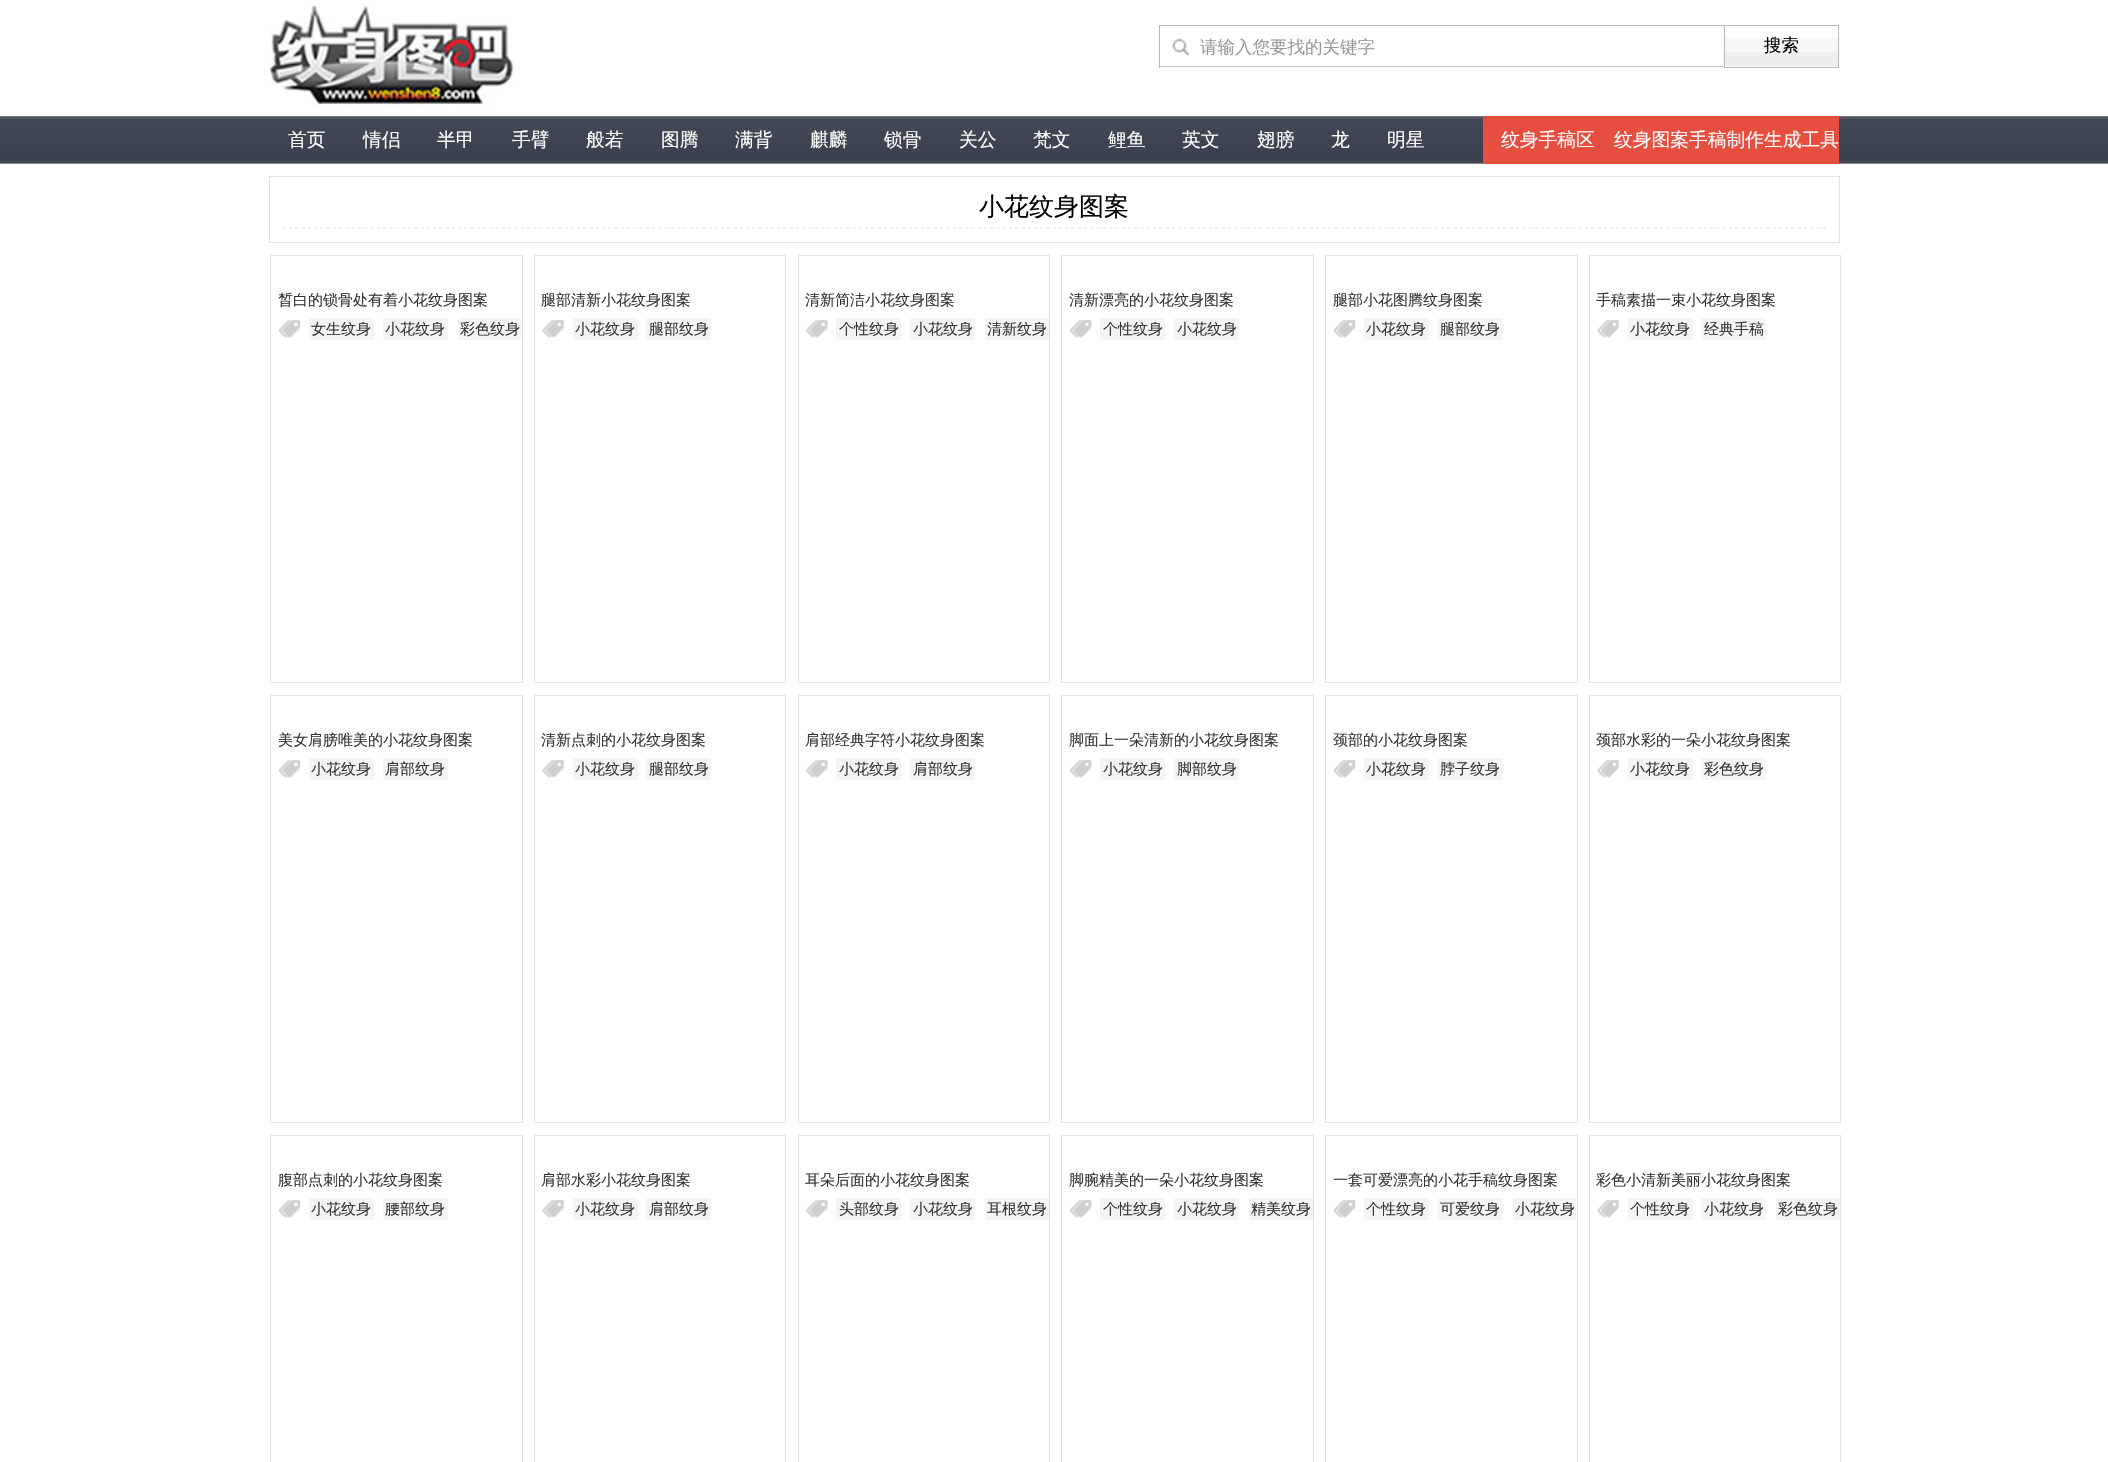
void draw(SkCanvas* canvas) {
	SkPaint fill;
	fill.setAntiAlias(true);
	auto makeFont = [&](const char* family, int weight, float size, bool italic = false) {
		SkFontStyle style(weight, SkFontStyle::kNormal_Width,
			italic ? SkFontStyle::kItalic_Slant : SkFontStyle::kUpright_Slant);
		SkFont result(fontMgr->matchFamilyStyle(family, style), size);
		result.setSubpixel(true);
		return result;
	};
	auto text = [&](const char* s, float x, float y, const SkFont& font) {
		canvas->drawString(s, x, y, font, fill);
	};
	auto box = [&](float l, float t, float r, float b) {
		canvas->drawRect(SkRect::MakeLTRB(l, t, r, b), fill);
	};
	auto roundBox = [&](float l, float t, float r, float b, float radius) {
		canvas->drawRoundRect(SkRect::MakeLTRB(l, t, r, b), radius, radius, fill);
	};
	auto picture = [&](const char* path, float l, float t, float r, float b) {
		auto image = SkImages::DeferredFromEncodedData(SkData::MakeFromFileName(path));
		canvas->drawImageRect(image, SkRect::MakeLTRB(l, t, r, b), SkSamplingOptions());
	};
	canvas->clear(0xFFFFFFFF);
	picture("image0.png", 270, 6, 516, 106);
	picture("image1.png", 1172, 38, 1189, 56);
	fill.setColor(0xFFB8B8B8);
	box(1159, 25, 1724, 26);
	fill.setColor(0xFFC8C8C8);
	box(1159, 66, 1724, 67);
	fill.setColor(0xFFB8B8B8);
	box(1159, 25, 1160, 68);
	picture("image2.png", 1723, 38, 1838, 67);
	fill.setStyle(SkPaint::kStroke_Style);
	fill.setStrokeWidth(1);
	canvas->drawRect(SkRect::MakeLTRB(1724.5f, 25.5f, 1838.5f, 67.5f), fill);
	picture("image3.png", 0, 116, 2108, 164);
	fill.setStyle(SkPaint::kFill_Style);
	fill.setColor(0xFFE64E40);
	box(1483, 116, 1839, 164);
	fill.setStyle(SkPaint::kStroke_Style);
	fill.setColor(0xFFE2E2E2);
	canvas->drawRect(SkRect::MakeLTRB(269.5f, 176.5f, 1839.5f, 242.5f), fill);
	fill.setStrokeWidth(1.2f);
	fill.setPathEffect(SkDashPathEffect::Make({{3.75f, 2.51f}}, 0));
	canvas->drawPath(SkPathBuilder().moveTo(282.5f, 228).lineTo(1826, 228).detach(), fill);
	fill.setPathEffect(nullptr);
	fill.setStrokeWidth(1);
	canvas->drawRect(SkRect::MakeLTRB(270.5f, 255.5f, 522.5f, 682.5f), fill);
	picture("image4.png", 278, 320, 301, 338);
	fill.setStyle(SkPaint::kFill_Style);
	fill.setColor(0xFFF4F4F4);
	roundBox(309, 318, 374, 340, 2.5f);
	roundBox(383, 318, 448, 340, 2.5f);
	canvas->save();
	canvas->clipRect(SkRect::MakeLTRB(271, 318, 521, 376));
	roundBox(458, 318, 523, 340, 2.5f);
	canvas->restore();
	fill.setStyle(SkPaint::kStroke_Style);
	fill.setColor(0xFFE2E2E2);
	canvas->drawRect(SkRect::MakeLTRB(534.5f, 255.5f, 785.5f, 682.5f), fill);
	picture("image5.png", 542, 320, 564, 338);
	fill.setStyle(SkPaint::kFill_Style);
	fill.setColor(0xFFF4F4F4);
	roundBox(573, 318, 638, 340, 2.5f);
	roundBox(646, 318, 711, 340, 2.5f);
	fill.setStyle(SkPaint::kStroke_Style);
	fill.setColor(0xFFE2E2E2);
	canvas->drawRect(SkRect::MakeLTRB(798.5f, 255.5f, 1049.5f, 682.5f), fill);
	picture("image6.png", 806, 320, 828, 338);
	fill.setStyle(SkPaint::kFill_Style);
	fill.setColor(0xFFF4F4F4);
	roundBox(836, 318, 901, 340, 2.5f);
	roundBox(910, 318, 975, 340, 2.5f);
	canvas->save();
	canvas->clipRect(SkRect::MakeLTRB(799, 318, 1049, 376));
	roundBox(985, 318, 1050, 340, 2.5f);
	canvas->restore();
	fill.setStyle(SkPaint::kStroke_Style);
	fill.setColor(0xFFE2E2E2);
	canvas->drawRect(SkRect::MakeLTRB(1061.5f, 255.5f, 1313.5f, 682.5f), fill);
	picture("image7.png", 1070, 320, 1092, 338);
	fill.setStyle(SkPaint::kFill_Style);
	fill.setColor(0xFFF4F4F4);
	roundBox(1100, 318, 1165, 340, 2.5f);
	roundBox(1174, 318, 1239, 340, 2.5f);
	fill.setStyle(SkPaint::kStroke_Style);
	fill.setColor(0xFFE2E2E2);
	canvas->drawRect(SkRect::MakeLTRB(1325.5f, 255.5f, 1577.5f, 682.5f), fill);
	picture("image4.png", 1333, 320, 1356, 338);
	fill.setStyle(SkPaint::kFill_Style);
	fill.setColor(0xFFF4F4F4);
	roundBox(1364, 318, 1429, 340, 2.5f);
	roundBox(1438, 318, 1503, 340, 2.5f);
	fill.setStyle(SkPaint::kStroke_Style);
	fill.setColor(0xFFE2E2E2);
	canvas->drawRect(SkRect::MakeLTRB(1589.5f, 255.5f, 1840.5f, 682.5f), fill);
	picture("image8.png", 1597, 320, 1619, 338);
	fill.setStyle(SkPaint::kFill_Style);
	fill.setColor(0xFFF4F4F4);
	roundBox(1628, 318, 1693, 340, 2.5f);
	roundBox(1701, 318, 1766, 340, 2.5f);
	fill.setStyle(SkPaint::kStroke_Style);
	fill.setColor(0xFFE2E2E2);
	canvas->drawRect(SkRect::MakeLTRB(270.5f, 695.5f, 522.5f, 1122.5f), fill);
	picture("image4.png", 278, 760, 301, 778);
	fill.setStyle(SkPaint::kFill_Style);
	fill.setColor(0xFFF4F4F4);
	roundBox(309, 758, 374, 780, 2.5f);
	roundBox(383, 758, 448, 780, 2.5f);
	fill.setStyle(SkPaint::kStroke_Style);
	fill.setColor(0xFFE2E2E2);
	canvas->drawRect(SkRect::MakeLTRB(534.5f, 695.5f, 785.5f, 1122.5f), fill);
	picture("image5.png", 542, 760, 564, 778);
	fill.setStyle(SkPaint::kFill_Style);
	fill.setColor(0xFFF4F4F4);
	roundBox(573, 758, 638, 780, 2.5f);
	roundBox(646, 758, 711, 780, 2.5f);
	fill.setStyle(SkPaint::kStroke_Style);
	fill.setColor(0xFFE2E2E2);
	canvas->drawRect(SkRect::MakeLTRB(798.5f, 695.5f, 1049.5f, 1122.5f), fill);
	picture("image6.png", 806, 760, 828, 778);
	fill.setStyle(SkPaint::kFill_Style);
	fill.setColor(0xFFF4F4F4);
	roundBox(836, 758, 901, 780, 2.5f);
	roundBox(910, 758, 975, 780, 2.5f);
	fill.setStyle(SkPaint::kStroke_Style);
	fill.setColor(0xFFE2E2E2);
	canvas->drawRect(SkRect::MakeLTRB(1061.5f, 695.5f, 1313.5f, 1122.5f), fill);
	picture("image7.png", 1070, 760, 1092, 778);
	fill.setStyle(SkPaint::kFill_Style);
	fill.setColor(0xFFF4F4F4);
	roundBox(1100, 758, 1165, 780, 2.5f);
	roundBox(1174, 758, 1239, 780, 2.5f);
	fill.setStyle(SkPaint::kStroke_Style);
	fill.setColor(0xFFE2E2E2);
	canvas->drawRect(SkRect::MakeLTRB(1325.5f, 695.5f, 1577.5f, 1122.5f), fill);
	picture("image4.png", 1333, 760, 1356, 778);
	fill.setStyle(SkPaint::kFill_Style);
	fill.setColor(0xFFF4F4F4);
	roundBox(1364, 758, 1429, 780, 2.5f);
	roundBox(1438, 758, 1503, 780, 2.5f);
	fill.setStyle(SkPaint::kStroke_Style);
	fill.setColor(0xFFE2E2E2);
	canvas->drawRect(SkRect::MakeLTRB(1589.5f, 695.5f, 1840.5f, 1122.5f), fill);
	picture("image8.png", 1597, 760, 1619, 778);
	fill.setStyle(SkPaint::kFill_Style);
	fill.setColor(0xFFF4F4F4);
	roundBox(1628, 758, 1693, 780, 2.5f);
	roundBox(1701, 758, 1766, 780, 2.5f);
	fill.setStyle(SkPaint::kStroke_Style);
	fill.setColor(0xFFE2E2E2);
	canvas->drawRect(SkRect::MakeLTRB(270.5f, 1135.5f, 522.5f, 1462.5f), fill);
	picture("image4.png", 278, 1200, 301, 1218);
	fill.setStyle(SkPaint::kFill_Style);
	fill.setColor(0xFFF4F4F4);
	roundBox(309, 1198, 374, 1220, 2.5f);
	roundBox(383, 1198, 448, 1220, 2.5f);
	fill.setStyle(SkPaint::kStroke_Style);
	fill.setColor(0xFFE2E2E2);
	canvas->drawRect(SkRect::MakeLTRB(534.5f, 1135.5f, 785.5f, 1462.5f), fill);
	picture("image5.png", 542, 1200, 564, 1218);
	fill.setStyle(SkPaint::kFill_Style);
	fill.setColor(0xFFF4F4F4);
	roundBox(573, 1198, 638, 1220, 2.5f);
	roundBox(646, 1198, 711, 1220, 2.5f);
	fill.setStyle(SkPaint::kStroke_Style);
	fill.setColor(0xFFE2E2E2);
	canvas->drawRect(SkRect::MakeLTRB(798.5f, 1135.5f, 1049.5f, 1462.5f), fill);
	picture("image6.png", 806, 1200, 828, 1218);
	fill.setStyle(SkPaint::kFill_Style);
	fill.setColor(0xFFF4F4F4);
	roundBox(836, 1198, 901, 1220, 2.5f);
	roundBox(910, 1198, 975, 1220, 2.5f);
	canvas->save();
	canvas->clipRect(SkRect::MakeLTRB(799, 1198, 1049, 1256));
	roundBox(985, 1198, 1050, 1220, 2.5f);
	canvas->restore();
	fill.setStyle(SkPaint::kStroke_Style);
	fill.setColor(0xFFE2E2E2);
	canvas->drawRect(SkRect::MakeLTRB(1061.5f, 1135.5f, 1313.5f, 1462.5f), fill);
	picture("image7.png", 1070, 1200, 1092, 1218);
	fill.setStyle(SkPaint::kFill_Style);
	fill.setColor(0xFFF4F4F4);
	roundBox(1100, 1198, 1165, 1220, 2.5f);
	roundBox(1174, 1198, 1239, 1220, 2.5f);
	canvas->save();
	canvas->clipRect(SkRect::MakeLTRB(1063, 1198, 1313, 1256));
	roundBox(1249, 1198, 1314, 1220, 2.5f);
	canvas->restore();
	fill.setStyle(SkPaint::kStroke_Style);
	fill.setColor(0xFFE2E2E2);
	canvas->drawRect(SkRect::MakeLTRB(1325.5f, 1135.5f, 1577.5f, 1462.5f), fill);
	picture("image4.png", 1333, 1200, 1356, 1218);
	fill.setStyle(SkPaint::kFill_Style);
	fill.setColor(0xFFF4F4F4);
	roundBox(1364, 1198, 1429, 1220, 2.5f);
	roundBox(1438, 1198, 1503, 1220, 2.5f);
	canvas->save();
	canvas->clipRect(SkRect::MakeLTRB(1326, 1198, 1576, 1256));
	roundBox(1513, 1198, 1578, 1220, 2.5f);
	canvas->restore();
	fill.setStyle(SkPaint::kStroke_Style);
	fill.setColor(0xFFE2E2E2);
	canvas->drawRect(SkRect::MakeLTRB(1589.5f, 1135.5f, 1840.5f, 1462.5f), fill);
	picture("image8.png", 1597, 1200, 1619, 1218);
	fill.setStyle(SkPaint::kFill_Style);
	fill.setColor(0xFFF4F4F4);
	roundBox(1628, 1198, 1693, 1220, 2.5f);
	roundBox(1701, 1198, 1766, 1220, 2.5f);
	canvas->save();
	canvas->clipRect(SkRect::MakeLTRB(1590, 1198, 1840, 1256));
	roundBox(1776, 1198, 1841, 1220, 2.5f);
	canvas->restore();
	auto font1 = makeFont("WenQuanYi Zen Hei", 500, 17.5f);
	fill.setColor(0xFF999999);
	text("请输入您要找的关键字", 1200, 53, font1);
	fill.setColor(0xFF000000);
	text("搜索", 1764, 51, font1);
	auto font2 = makeFont("WenQuanYi Zen Hei", 500, 18.75f);
	fill.setColor(0xFFFFFFFF);
	text("首页", 288, 146, font2);
	text("情侣", 363, 146, font2);
	text("半甲", 437, 146, font2);
	text("手臂", 512, 146, font2);
	text("般若", 586, 146, font2);
	text("图腾", 661, 146, font2);
	text("满背", 735, 146, font2);
	text("麒麟", 810, 146, font2);
	text("锁骨", 884, 146, font2);
	text("关公", 959, 146, font2);
	text("梵文", 1033, 146, font2);
	text("鲤鱼", 1108, 146, font2);
	text("英文", 1182, 146, font2);
	text("翅膀", 1257, 146, font2);
	text("龙", 1331, 146, font2);
	text("明星", 1387, 146, font2);
	text("纹身手稿区", 1501, 146, font2);
	text("纹身图案手稿制作生成工具", 1614, 146, font2);
	auto font3 = makeFont("WenQuanYi Zen Hei", 500, 25);
	fill.setColor(0xFF000000);
	text("小花纹身图案", 979, 215, font3);
	auto font4 = makeFont("WenQuanYi Zen Hei", 500, 15);
	fill.setColor(0xFF333333);
	text("晳白的锁骨处有着小花纹身图案", 278, 305, font4);
	text("女生纹身", 311, 334, font4);
	text("小花纹身", 385, 334, font4);
	text("彩色纹身", 460, 334, font4);
	text("腿部清新小花纹身图案", 541, 305, font4);
	text("小花纹身", 575, 334, font4);
	text("腿部纹身", 649, 334, font4);
	text("清新简洁小花纹身图案", 805, 305, font4);
	text("个性纹身", 839, 334, font4);
	text("小花纹身", 913, 334, font4);
	text("清新纹身", 987, 334, font4);
	text("清新漂亮的小花纹身图案", 1069, 305, font4);
	text("个性纹身", 1103, 334, font4);
	text("小花纹身", 1177, 334, font4);
	text("腿部小花图腾纹身图案", 1333, 305, font4);
	text("小花纹身", 1366, 334, font4);
	text("腿部纹身", 1440, 334, font4);
	text("手稿素描一束小花纹身图案", 1596, 305, font4);
	text("小花纹身", 1630, 334, font4);
	text("经典手稿", 1704, 334, font4);
	text("美女肩膀唯美的小花纹身图案", 278, 745, font4);
	text("小花纹身", 311, 774, font4);
	text("肩部纹身", 385, 774, font4);
	text("清新点刺的小花纹身图案", 541, 745, font4);
	text("小花纹身", 575, 774, font4);
	text("腿部纹身", 649, 774, font4);
	text("肩部经典字符小花纹身图案", 805, 745, font4);
	text("小花纹身", 839, 774, font4);
	text("肩部纹身", 913, 774, font4);
	text("脚面上一朵清新的小花纹身图案", 1069, 745, font4);
	text("小花纹身", 1103, 774, font4);
	text("脚部纹身", 1177, 774, font4);
	text("颈部的小花纹身图案", 1333, 745, font4);
	text("小花纹身", 1366, 774, font4);
	text("脖子纹身", 1440, 774, font4);
	text("颈部水彩的一朵小花纹身图案", 1596, 745, font4);
	text("小花纹身", 1630, 774, font4);
	text("彩色纹身", 1704, 774, font4);
	text("腹部点刺的小花纹身图案", 278, 1185, font4);
	text("小花纹身", 311, 1214, font4);
	text("腰部纹身", 385, 1214, font4);
	text("肩部水彩小花纹身图案", 541, 1185, font4);
	text("小花纹身", 575, 1214, font4);
	text("肩部纹身", 649, 1214, font4);
	text("耳朵后面的小花纹身图案", 805, 1185, font4);
	text("头部纹身", 839, 1214, font4);
	text("小花纹身", 913, 1214, font4);
	text("耳根纹身", 987, 1214, font4);
	text("脚腕精美的一朵小花纹身图案", 1069, 1185, font4);
	text("个性纹身", 1103, 1214, font4);
	text("小花纹身", 1177, 1214, font4);
	text("精美纹身", 1251, 1214, font4);
	text("一套可爱漂亮的小花手稿纹身图案", 1333, 1185, font4);
	text("个性纹身", 1366, 1214, font4);
	text("可爱纹身", 1440, 1214, font4);
	text("小花纹身", 1515, 1214, font4);
	text("彩色小清新美丽小花纹身图案", 1596, 1185, font4);
	text("个性纹身", 1630, 1214, font4);
	text("小花纹身", 1704, 1214, font4);
	text("彩色纹身", 1778, 1214, font4);
}
